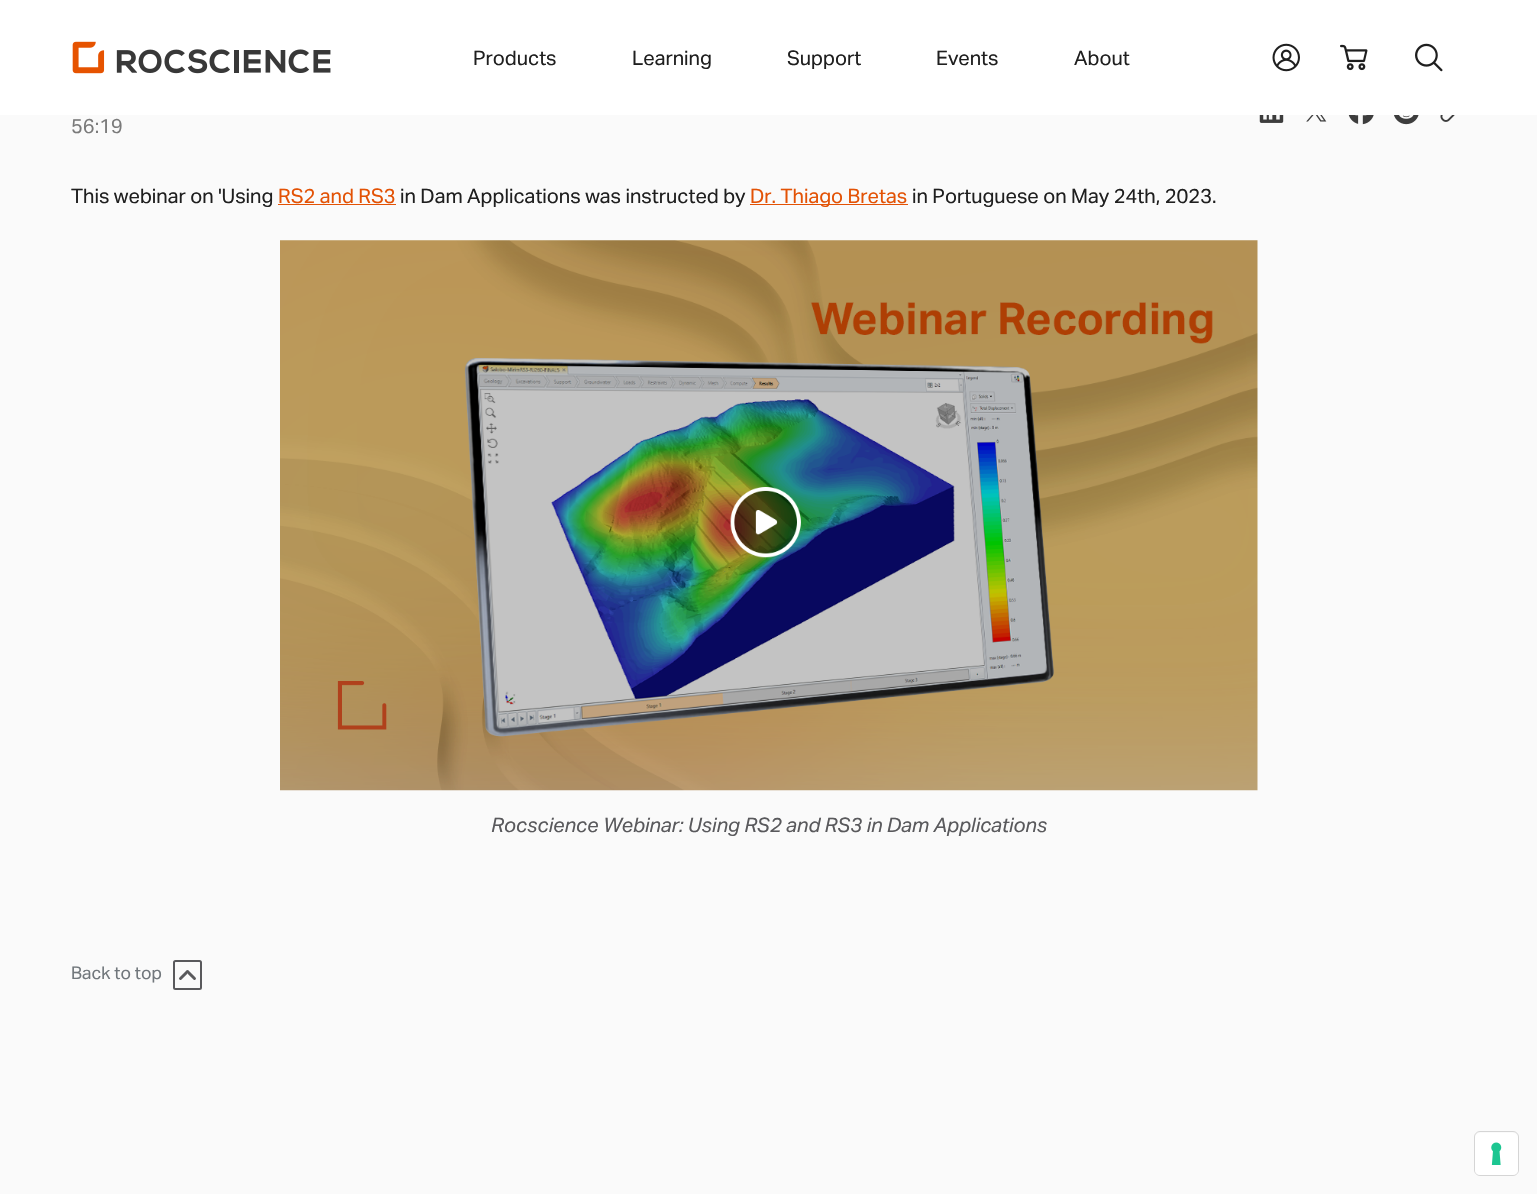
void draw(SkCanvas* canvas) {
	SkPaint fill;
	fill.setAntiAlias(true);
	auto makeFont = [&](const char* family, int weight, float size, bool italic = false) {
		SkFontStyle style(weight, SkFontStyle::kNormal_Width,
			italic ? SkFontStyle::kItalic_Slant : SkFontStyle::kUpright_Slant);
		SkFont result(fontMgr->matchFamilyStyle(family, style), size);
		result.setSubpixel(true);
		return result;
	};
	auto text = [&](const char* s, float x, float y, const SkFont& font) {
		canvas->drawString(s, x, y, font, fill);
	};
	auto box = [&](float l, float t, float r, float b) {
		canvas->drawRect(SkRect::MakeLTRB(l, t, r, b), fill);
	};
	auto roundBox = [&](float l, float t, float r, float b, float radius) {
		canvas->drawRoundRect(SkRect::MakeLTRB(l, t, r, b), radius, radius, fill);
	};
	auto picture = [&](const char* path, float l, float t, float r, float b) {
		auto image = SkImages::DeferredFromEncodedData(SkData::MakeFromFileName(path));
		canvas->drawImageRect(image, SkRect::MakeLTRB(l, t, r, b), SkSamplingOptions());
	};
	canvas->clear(0xFFFAFAFA);
	fill.setColor(0xFFFFFFFF);
	box(0, 0, 1537, 115);
	picture("image0.png", 72, 41, 331, 74);
	picture("image1.png", 1272, 43, 1300, 72);
	picture("image2.png", 1340, 44, 1368, 71);
	picture("image3.png", 1415, 43, 1443, 72);
	picture("image4.png", 1259, 115, 1284, 123);
	picture("image5.png", 1306, 115, 1327, 122);
	picture("image6.png", 1348, 115, 1374, 125);
	picture("image7.png", 1394, 115, 1419, 125);
	picture("image8.png", 1440, 115, 1455, 122);
	fill.setColor(0xFFE35205);
	box(278, 204, 396, 205);
	box(750, 204, 908, 205);
	picture("image9.png", 280, 240, 1258, 791);
	fill.setStyle(SkPaint::kStroke_Style);
	fill.setStrokeWidth(2);
	fill.setColor(0xFF59595C);
	canvas->drawRoundRect(SkRect::MakeLTRB(174, 961, 201, 989), 1.5f, 1.5f, fill);
	fill.setStrokeWidth(2.9f);
	fill.setStrokeCap(SkPaint::kRound_Cap);
	canvas->drawPath(SkPathBuilder().moveTo(194.5f, 978.5f).lineTo(189, 973).cubicTo(187.5f, 971, 187.5f, 971, 186, 973).lineTo(180.5f, 978.5f).detach(), fill);
	fill.setStrokeWidth(1);
	fill.setStrokeCap(SkPaint::kButt_Cap);
	fill.setColor(0xFFD5D5D5);
	canvas->drawRoundRect(SkRect::MakeLTRB(1474.5f, 1131.5f, 1518.5f, 1175.5f), 5.5f, 5.5f, fill);
	fill.setStyle(SkPaint::kFill_Style);
	fill.setColor(0xFFFFFFFF);
	roundBox(1475, 1133, 1518, 1175, 5);
	picture("image10.png", 1491, 1142, 1502, 1165);
	auto font1 = makeFont("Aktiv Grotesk", 400, 20);
	fill.setColor(0xFF1F1F1F);
	text("Products", 473, 65, font1);
	text("Learning", 632, 65, font1);
	text("Support", 787, 65, font1);
	text("Events", 936, 65, font1);
	text("About", 1074, 65, font1);
	fill.setColor(0xFF7A7A7A);
	text("56:19", 71, 133, font1);
	fill.setColor(0xFF1F1F1F);
	text("This webinar on 'Using", 71, 203, font1);
	fill.setColor(0xFFE35205);
	text("RS2 and RS3", 278, 203, font1);
	fill.setColor(0xFF1F1F1F);
	text("in Dam Applications was instructed by", 400, 203, font1);
	fill.setColor(0xFFE35205);
	text("Dr. Thiago Bretas", 750, 203, font1);
	fill.setColor(0xFF1F1F1F);
	text("in Portuguese on May 24th, 2023.", 912, 203, font1);
	auto font2 = makeFont("Aktiv Grotesk", 400, 20, true);
	fill.setColor(0xFF59595C);
	text("Rocscience Webinar: Using RS2 and RS3 in Dam Applications", 491, 832, font2);
	auto font3 = makeFont("Aktiv Grotesk", 400, 17.5f);
	fill.setColor(0xFF71777C);
	text("Back to top", 71, 979, font3);
}
